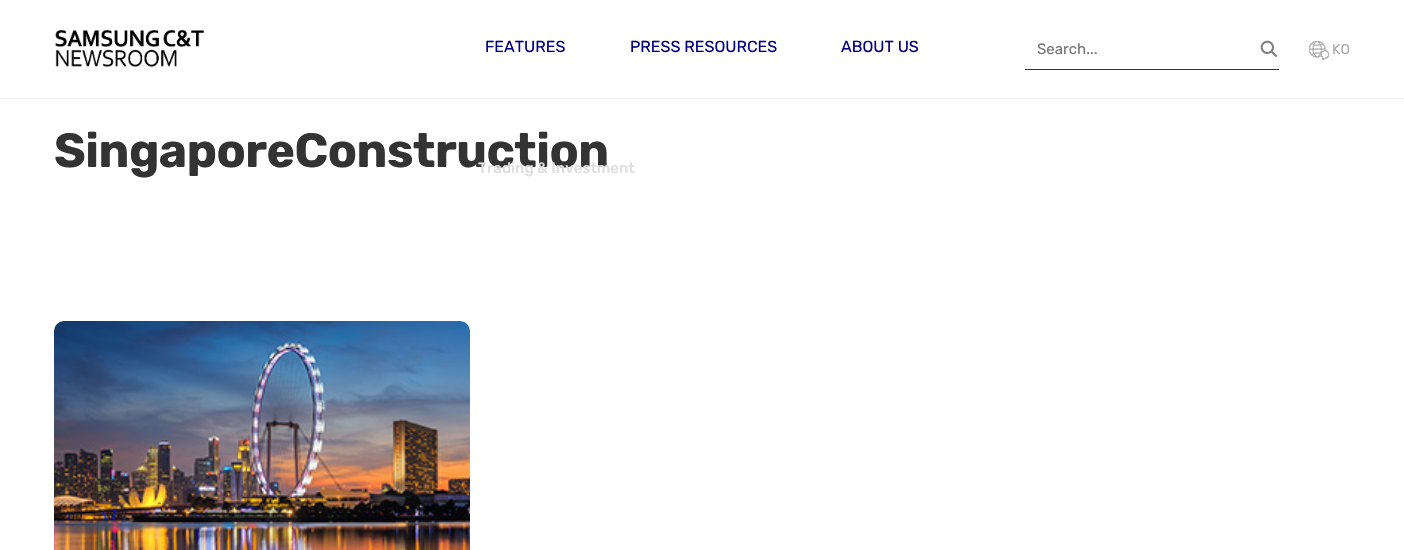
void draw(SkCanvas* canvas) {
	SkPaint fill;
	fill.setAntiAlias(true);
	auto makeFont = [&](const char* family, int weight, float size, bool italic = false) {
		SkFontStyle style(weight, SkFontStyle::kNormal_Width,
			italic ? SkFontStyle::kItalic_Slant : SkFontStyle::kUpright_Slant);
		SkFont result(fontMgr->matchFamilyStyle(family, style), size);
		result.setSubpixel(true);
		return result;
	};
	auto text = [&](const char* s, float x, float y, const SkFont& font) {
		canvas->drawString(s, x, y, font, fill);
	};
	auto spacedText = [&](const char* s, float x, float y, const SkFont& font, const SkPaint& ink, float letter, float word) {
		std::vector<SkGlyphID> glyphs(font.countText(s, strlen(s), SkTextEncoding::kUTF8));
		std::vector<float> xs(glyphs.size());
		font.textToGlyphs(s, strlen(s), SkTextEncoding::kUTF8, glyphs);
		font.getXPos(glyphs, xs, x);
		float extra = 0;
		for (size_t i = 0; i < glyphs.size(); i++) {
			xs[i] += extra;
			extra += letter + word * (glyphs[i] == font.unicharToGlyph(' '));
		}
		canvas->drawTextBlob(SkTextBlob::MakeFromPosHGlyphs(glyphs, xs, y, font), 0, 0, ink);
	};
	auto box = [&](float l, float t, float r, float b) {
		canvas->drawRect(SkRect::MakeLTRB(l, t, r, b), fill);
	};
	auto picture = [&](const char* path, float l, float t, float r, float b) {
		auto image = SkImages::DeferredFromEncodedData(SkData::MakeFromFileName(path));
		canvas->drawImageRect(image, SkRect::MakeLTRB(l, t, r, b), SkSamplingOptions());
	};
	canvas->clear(0xFFFFFFFF);
	fill.setColor(0xFFEEEEEE);
	box(0, 98, 1404, 99);
	picture("image0.png", 55, 30, 204, 67);
	fill.setColor(0xFF333333);
	box(1025, 69, 1279, 70);
	picture("image1.png", 1260, 40, 1278, 58);
	picture("image2.png", 1309, 41, 1329, 60);
	picture("image3.png", 54, 321, 470, 550);
	auto font1 = makeFont("Rubik", 700, 48);
	spacedText("SingaporeConstruction", 54, 167, font1, fill, -0.5f, 0);
	auto font2 = makeFont("Rubik", 400, 16);
	fill.setColor(0xFF000080);
	text("FEATURES", 485, 52, font2);
	auto font3 = makeFont("Rubik", 500, 15);
	fill.setColor(0xFFDFDFDF);
	text("Trading & Investment", 478, 173, font3);
	fill.setColor(0xFF000080);
	text("PRESS RESOURCES", 630, 52, font2);
	text("ABOUT US", 841, 52, font2);
	auto font4 = makeFont("Rubik", 400, 15);
	fill.setColor(0xFF757575);
	text("Search...", 1037, 54, font4);
	auto font5 = makeFont("Rubik", 400, 14);
	fill.setColor(0xFFAAAAAA);
	text("KO", 1332, 54, font5);
}
